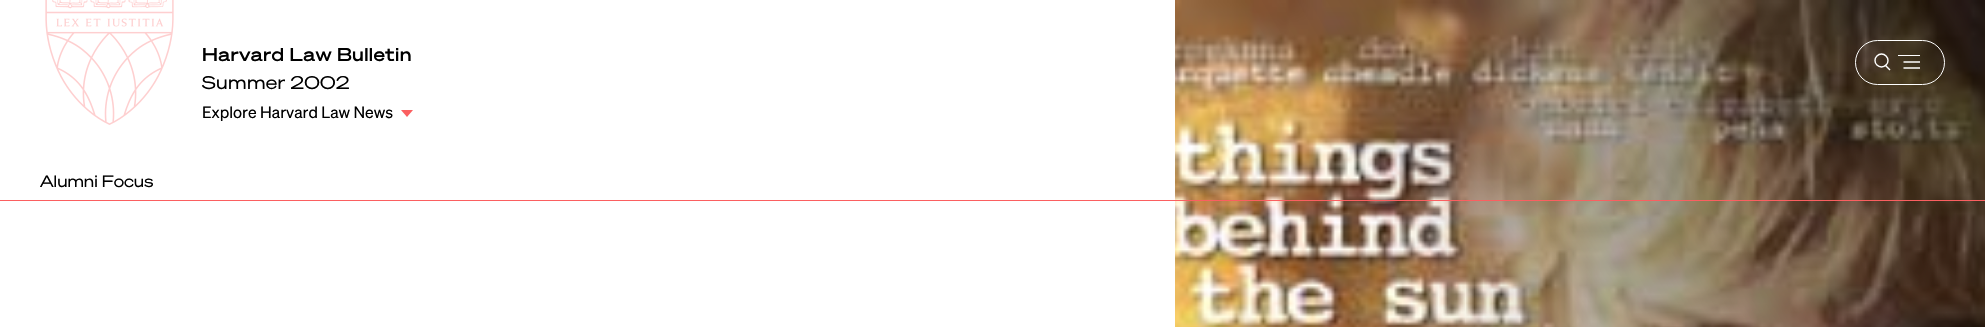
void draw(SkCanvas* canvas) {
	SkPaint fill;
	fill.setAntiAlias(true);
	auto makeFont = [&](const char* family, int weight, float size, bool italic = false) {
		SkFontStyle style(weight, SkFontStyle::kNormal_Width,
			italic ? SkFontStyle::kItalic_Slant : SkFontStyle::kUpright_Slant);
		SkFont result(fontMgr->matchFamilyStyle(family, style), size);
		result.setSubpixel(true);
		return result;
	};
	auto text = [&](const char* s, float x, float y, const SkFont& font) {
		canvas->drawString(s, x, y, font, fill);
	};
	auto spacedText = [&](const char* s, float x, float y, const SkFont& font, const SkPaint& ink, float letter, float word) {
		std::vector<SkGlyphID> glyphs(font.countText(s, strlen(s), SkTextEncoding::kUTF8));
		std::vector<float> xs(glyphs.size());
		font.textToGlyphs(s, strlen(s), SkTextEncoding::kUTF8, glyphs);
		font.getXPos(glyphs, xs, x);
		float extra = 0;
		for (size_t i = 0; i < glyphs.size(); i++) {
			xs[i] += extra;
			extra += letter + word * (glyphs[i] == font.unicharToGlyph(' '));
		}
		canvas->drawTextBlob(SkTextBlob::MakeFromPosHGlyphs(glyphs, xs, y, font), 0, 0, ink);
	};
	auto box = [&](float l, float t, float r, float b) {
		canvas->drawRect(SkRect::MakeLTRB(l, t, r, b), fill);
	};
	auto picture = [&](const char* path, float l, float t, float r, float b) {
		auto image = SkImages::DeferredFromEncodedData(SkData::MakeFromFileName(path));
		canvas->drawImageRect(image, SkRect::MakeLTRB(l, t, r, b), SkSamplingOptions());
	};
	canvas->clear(0xFFFFFFFF);
	picture("image0.png", 45, 0, 174, 125);
	picture("image1.png", 1175, 0, 1985, 327);
	fill.setStyle(SkPaint::kStroke_Style);
	fill.setStrokeWidth(1);
	fill.setColor(0xFFFFFFFF);
	canvas->drawRoundRect(SkRect::MakeLTRB(1855.5f, 40.5f, 1944.5f, 84.5f), 22, 22, fill);
	fill.setStrokeWidth(1.4f);
	canvas->drawCircle(1881.5f, 60.5f, 6.5f, fill);
	canvas->drawPath(SkPathBuilder().moveTo(1885, 65).lineTo(1890, 70).detach(), fill);
	fill.setStyle(SkPaint::kFill_Style);
	box(1898, 55, 1920, 56);
	fill.setStyle(SkPaint::kStroke_Style);
	canvas->drawPath(SkPathBuilder().moveTo(1903.5f, 62).lineTo(1920, 62).moveTo(1903.5f, 68).lineTo(1920, 68).detach(), fill);
	fill.setStyle(SkPaint::kFill_Style);
	fill.setColor(0xFFFB5F60);
	canvas->drawPath(SkPathBuilder().moveTo(401, 110).lineTo(413, 110).lineTo(407, 117).close().detach(), fill);
	box(0, 200, 1985, 201);
	auto font1 = makeFont("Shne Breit", 500, 18);
	fill.setColor(0xFF000000);
	spacedText("Harvard Law Bulletin", 202, 61, font1, fill, 0.4f, 0);
	auto font2 = makeFont("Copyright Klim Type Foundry", 400, 18);
	spacedText("Summer 2002", 202, 89, font2, fill, 0.4f, 0);
	auto font3 = makeFont("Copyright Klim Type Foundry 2", 400, 16);
	text("Explore Harvard Law News", 202, 118, font3);
	auto font4 = makeFont("Copyright Klim Type Foundry", 400, 16);
	text("Alumni Focus", 40, 187, font4);
}
